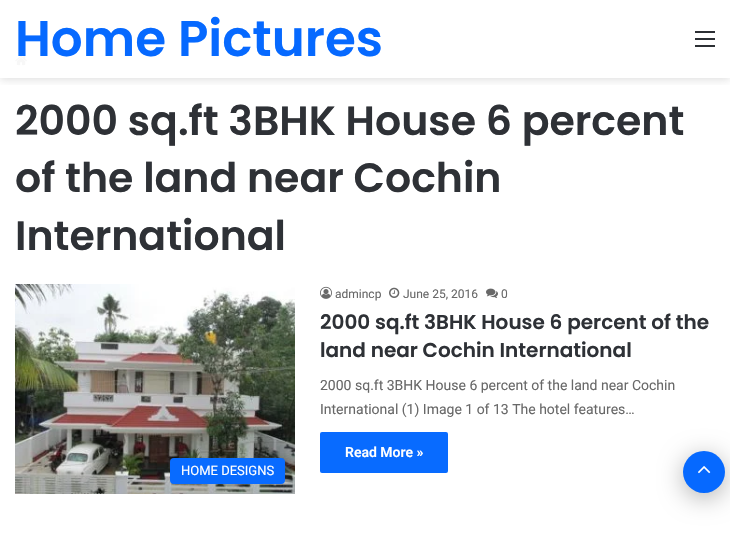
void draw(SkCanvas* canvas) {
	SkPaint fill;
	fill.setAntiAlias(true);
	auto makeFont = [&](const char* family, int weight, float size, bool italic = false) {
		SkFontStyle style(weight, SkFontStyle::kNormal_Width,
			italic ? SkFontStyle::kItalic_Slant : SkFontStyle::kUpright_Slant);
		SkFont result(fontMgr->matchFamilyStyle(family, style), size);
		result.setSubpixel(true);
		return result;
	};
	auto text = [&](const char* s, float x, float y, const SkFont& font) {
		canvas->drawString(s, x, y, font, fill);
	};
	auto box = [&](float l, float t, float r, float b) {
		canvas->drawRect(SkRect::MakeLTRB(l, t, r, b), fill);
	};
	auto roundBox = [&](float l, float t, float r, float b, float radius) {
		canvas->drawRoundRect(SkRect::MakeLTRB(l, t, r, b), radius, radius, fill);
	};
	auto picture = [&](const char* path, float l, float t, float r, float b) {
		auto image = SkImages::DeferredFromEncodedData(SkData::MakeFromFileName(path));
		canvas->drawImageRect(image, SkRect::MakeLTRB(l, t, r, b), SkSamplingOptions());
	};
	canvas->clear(0xFFFFFFFF);
	picture("image0.png", 15, 55, 27, 66);
	canvas->save();
	canvas->clipRect(SkRect::MakeLTRB(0, 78, 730, 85));
	fill.setColor(0x33636363);
	fill.setMaskFilter(SkMaskFilter::MakeBlur(kNormal_SkBlurStyle, 4));
	canvas->drawRect(SkRect::MakeLTRB(0, 2, 730, 80), fill);
	fill.setMaskFilter(nullptr);
	canvas->restore();
	fill.setColor(0xFF2C2F34);
	box(695, 38, 715, 40);
	box(695, 31, 715, 33);
	box(695, 45, 715, 47);
	picture("image1.png", 320, 286, 332, 299);
	picture("image2.png", 389, 287, 400, 298);
	picture("image3.png", 486, 288, 498, 298);
	fill.setColor(0xFF086BFF);
	roundBox(320, 432, 448, 473, 2);
	picture("image4.png", 15, 284, 295, 494);
	roundBox(170, 458, 285, 484, 4);
	fill.setColor(0x4D000000);
	fill.setMaskFilter(SkMaskFilter::MakeBlur(kNormal_SkBlurStyle, 12.5f));
	canvas->drawRoundRect(SkRect::MakeLTRB(683, 456, 725, 498), 21, 21, fill);
	fill.setMaskFilter(nullptr);
	fill.setColor(0xFF0669FF);
	canvas->drawCircle(704, 472, 21, fill);
	picture("image5.png", 698, 466, 711, 474);
	auto font1 = makeFont("Poppins", 600, 50);
	text("Home Pictures", 15, 56, font1);
	auto font2 = makeFont("Poppins", 600, 41);
	fill.setColor(0xFF2E3136);
	text("2000 sq.ft 3BHK House 6 percent", 15, 135, font2);
	text("of the land near Cochin", 15, 192, font2);
	text("International", 15, 250, font2);
	auto font3 = makeFont("Roboto", 400, 12);
	fill.setColor(0xFF686868);
	text("admincp", 335, 298, font3);
	text("June 25, 2016", 403, 298, font3);
	text("0", 501, 298, font3);
	auto font4 = makeFont("Poppins", 600, 20);
	fill.setColor(0xFF2E3136);
	text("2000 sq.ft 3BHK House 6 percent of the", 320, 329, font4);
	text("land near Cochin International", 320, 357, font4);
	auto font5 = makeFont("Roboto", 400, 14);
	fill.setColor(0xFF686868);
	text("2000 sq.ft 3BHK House 6 percent of the land near Cochin", 320, 390, font5);
	text("International (1) Image 1 of 13 The hotel features…", 320, 414, font5);
	auto font6 = makeFont("Roboto", 600, 14);
	fill.setColor(0xFFFFFFFF);
	text("Read More »", 345, 457, font6);
	auto font7 = makeFont("Roboto", 400, 13);
	text("HOME DESIGNS", 181, 475, font7);
}
